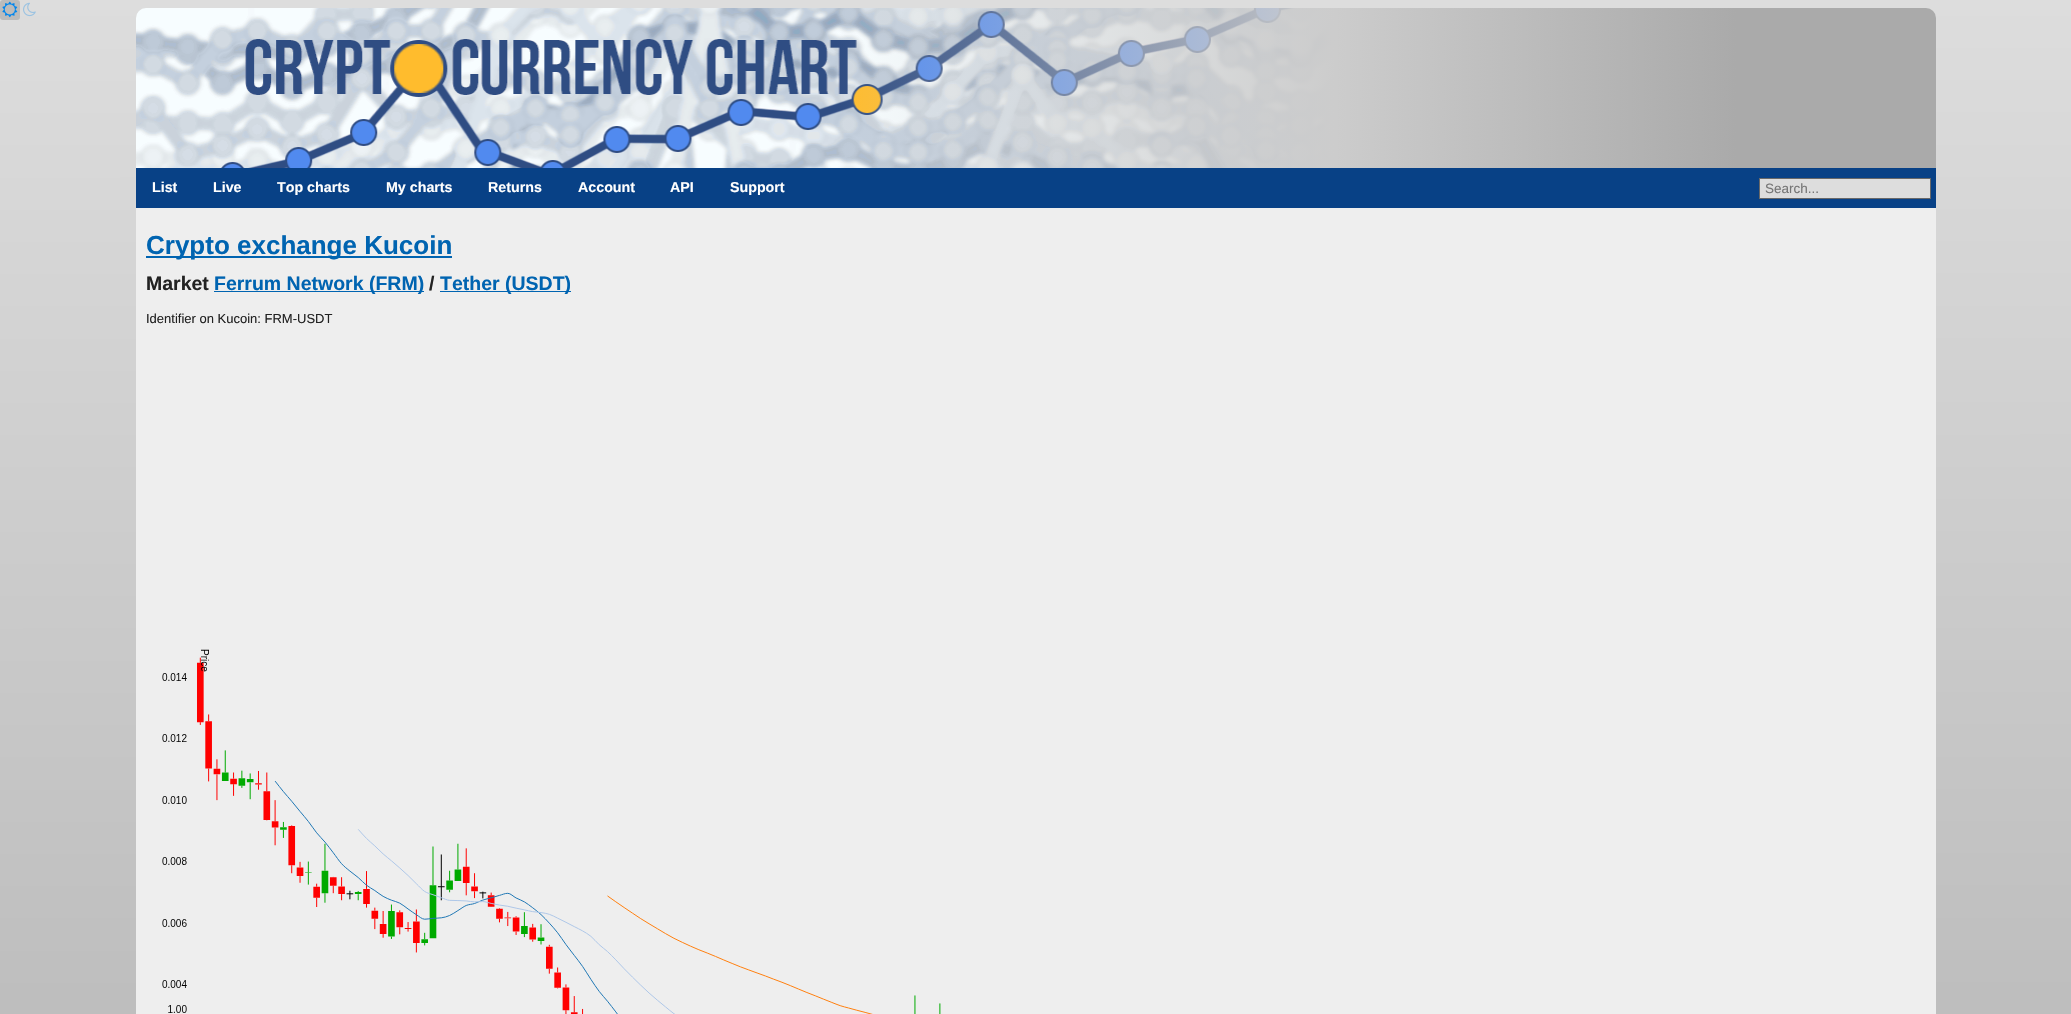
void draw(SkCanvas* canvas) {
	SkPaint fill;
	fill.setAntiAlias(true);
	auto makeFont = [&](const char* family, int weight, float size, bool italic = false) {
		SkFontStyle style(weight, SkFontStyle::kNormal_Width,
			italic ? SkFontStyle::kItalic_Slant : SkFontStyle::kUpright_Slant);
		SkFont result(fontMgr->matchFamilyStyle(family, style), size);
		result.setSubpixel(true);
		return result;
	};
	auto text = [&](const char* s, float x, float y, const SkFont& font) {
		canvas->drawString(s, x, y, font, fill);
	};
	auto box = [&](float l, float t, float r, float b) {
		canvas->drawRect(SkRect::MakeLTRB(l, t, r, b), fill);
	};
	auto roundBox = [&](float l, float t, float r, float b, float radius) {
		canvas->drawRoundRect(SkRect::MakeLTRB(l, t, r, b), radius, radius, fill);
	};
	auto picture = [&](const char* path, float l, float t, float r, float b) {
		auto image = SkImages::DeferredFromEncodedData(SkData::MakeFromFileName(path));
		canvas->drawImageRect(image, SkRect::MakeLTRB(l, t, r, b), SkSamplingOptions());
	};
	canvas->clear(0xFFFFFFFF);
	{
		const SkColor colors[] = {0xFFDDDDDD, 0xFF888888};
		const float stops[] = {0, 1};
		const SkPoint ends[] = {{1035, 0}, {1036, 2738}};
		fill.setShader(SkGradientShader::MakeLinear(ends, colors, stops, 2, SkTileMode::kClamp));
		fill.setAlpha(255);
	}
	box(0, 0, 2071, 1014);
	fill.setShader(nullptr);
	fill.setColor(0xFFBBBBBB);
	roundBox(0, 0, 20, 20, 3);
	picture("image0.png", 2, 1, 18, 18);
	picture("image1.png", 23, 2, 36, 17);
	picture("image2.png", 136, 8, 1936, 168);
	fill.setColor(0xFF084186);
	box(136, 168, 1936, 208);
	fill.setColor(0xFFDDDDDD);
	canvas->drawRect(SkRect::MakeLTRB(1759.5f, 178.5f, 1930.5f, 198.5f), fill);
	fill.setStyle(SkPaint::kStroke_Style);
	fill.setStrokeWidth(1);
	fill.setColor(0xFF686868);
	canvas->drawRect(SkRect::MakeLTRB(1759.5f, 178.5f, 1930.5f, 198.5f), fill);
	fill.setStyle(SkPaint::kFill_Style);
	fill.setColor(0xFFEEEEEE);
	box(136, 208, 1936, 1014);
	fill.setColor(0xFF0064B1);
	box(146, 256, 452, 258);
	box(214, 291, 424, 292);
	box(440, 291, 571, 292);
	picture("image3.png", 162, 649, 941, 1014);
	auto font1 = makeFont("Liberation Sans", 700, 14.25f);
	fill.setColor(0xFFFFFFFF);
	text("List", 152, 192, font1);
	text("Live", 213, 192, font1);
	text("Top charts", 277, 192, font1);
	text("My charts", 386, 192, font1);
	text("Returns", 488, 192, font1);
	text("Account", 578, 192, font1);
	text("API", 670, 192, font1);
	text("Support", 730, 192, font1);
	auto font2 = makeFont("Liberation Sans", 400, 13.5f);
	fill.setColor(0xFF757575);
	text("Search...", 1765, 193, font2);
	auto font3 = makeFont("Liberation Sans", 700, 26);
	fill.setColor(0xFF0064B1);
	text("Crypto exchange Kucoin", 146, 254, font3);
	auto font4 = makeFont("Liberation Sans", 700, 19.5f);
	fill.setColor(0xFF222222);
	text("Market", 146, 290, font4);
	fill.setColor(0xFF0064B1);
	text("Ferrum Network (FRM)", 214, 290, font4);
	fill.setColor(0xFF222222);
	text("/", 429, 290, font4);
	fill.setColor(0xFF0064B1);
	text("Tether (USDT)", 440, 290, font4);
	auto font5 = makeFont("Liberation Sans", 400, 13);
	fill.setColor(0xFF222222);
	text("Identifier on Kucoin: FRM-USDT", 146, 323, font5);
}
